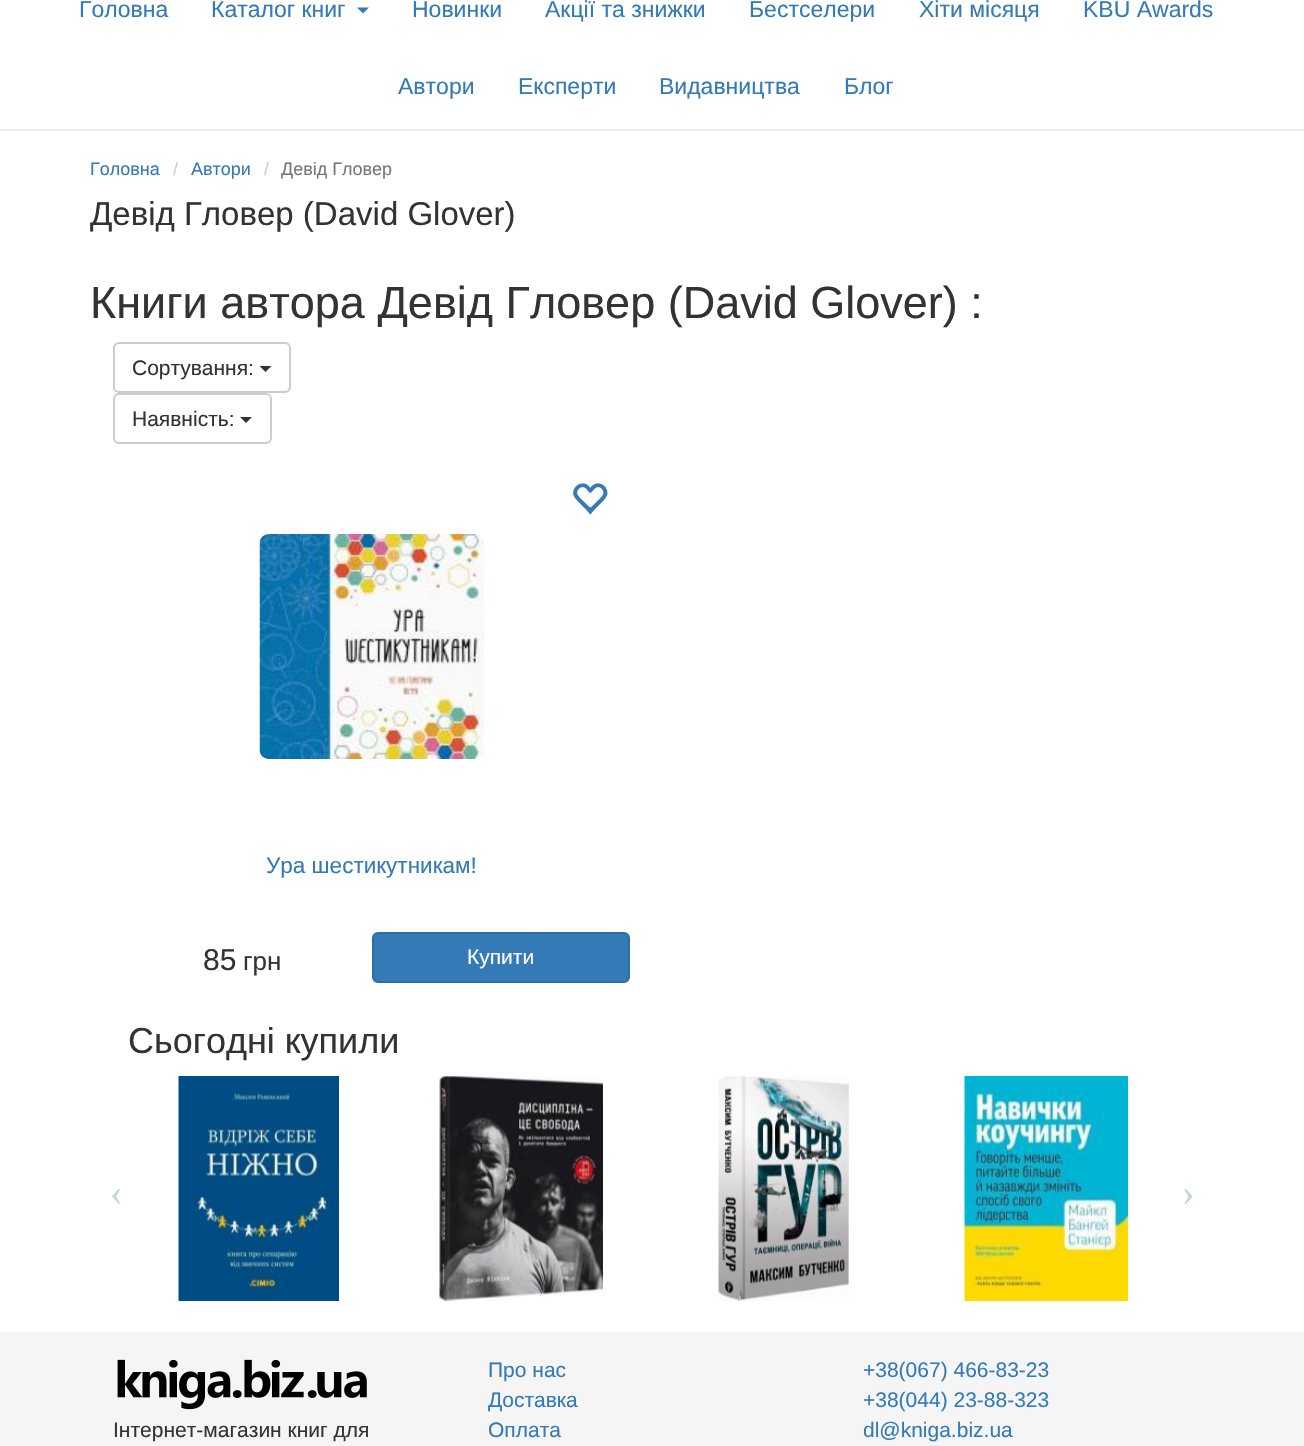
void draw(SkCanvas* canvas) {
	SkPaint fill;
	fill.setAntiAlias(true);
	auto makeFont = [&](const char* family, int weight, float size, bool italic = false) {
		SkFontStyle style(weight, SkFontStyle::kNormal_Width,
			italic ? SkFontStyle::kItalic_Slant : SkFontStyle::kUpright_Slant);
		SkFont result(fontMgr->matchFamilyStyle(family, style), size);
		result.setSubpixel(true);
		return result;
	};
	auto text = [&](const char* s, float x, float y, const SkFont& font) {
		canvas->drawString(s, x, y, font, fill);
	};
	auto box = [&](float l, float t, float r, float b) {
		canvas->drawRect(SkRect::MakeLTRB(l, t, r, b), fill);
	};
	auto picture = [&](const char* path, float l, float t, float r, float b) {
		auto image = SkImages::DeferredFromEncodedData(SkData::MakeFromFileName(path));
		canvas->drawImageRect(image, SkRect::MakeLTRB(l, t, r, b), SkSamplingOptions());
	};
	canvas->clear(0xFFFFFFFF);
	fill.setColor(0xFF337AB7);
	canvas->drawPath(SkPathBuilder().moveTo(357, 7.5f).lineTo(369, 7.5f).lineTo(363, 13.5f).close().detach(), fill);
	fill.setColor(0xFFEEEEEE);
	box(0, 129, 1304, 131);
	fill.setStyle(SkPaint::kStroke_Style);
	fill.setStrokeWidth(2);
	fill.setColor(0xFFCCCCCC);
	canvas->drawRoundRect(SkRect::MakeLTRB(114, 343, 290, 392), 5, 5, fill);
	fill.setStyle(SkPaint::kFill_Style);
	fill.setColor(0xFF333333);
	canvas->drawPath(SkPathBuilder().moveTo(259.5f, 366).lineTo(271.5f, 366).lineTo(265.5f, 372).close().detach(), fill);
	fill.setStyle(SkPaint::kStroke_Style);
	fill.setColor(0xFFCCCCCC);
	canvas->drawRoundRect(SkRect::MakeLTRB(114, 394, 271, 443), 5, 5, fill);
	fill.setStyle(SkPaint::kFill_Style);
	fill.setColor(0xFF333333);
	canvas->drawPath(SkPathBuilder().moveTo(240, 417).lineTo(252, 417).lineTo(246, 423).close().detach(), fill);
	picture("image0.png", 573, 483, 608, 515);
	picture("image1.png", 259, 534, 485, 759);
	fill.setColor(0xFF337AB7);
	canvas->drawRoundRect(SkRect::MakeLTRB(373, 933, 629, 982), 5, 5, fill);
	fill.setStyle(SkPaint::kStroke_Style);
	fill.setColor(0xFF2E6DA4);
	canvas->drawRoundRect(SkRect::MakeLTRB(373, 933, 629, 982), 5, 5, fill);
	picture("image2.png", 178, 1076, 339, 1301);
	picture("image3.png", 439, 1076, 603, 1301);
	picture("image4.png", 718, 1076, 849, 1301);
	picture("image5.png", 964, 1076, 1128, 1301);
	fill.setStyle(SkPaint::kFill_Style);
	fill.setColor(0xFFF5F5F5);
	box(0, 1332, 1304, 1446);
	picture("image6.png", 117, 1359, 367, 1410);
	auto font1 = makeFont("Liberation Sans", 400, 23);
	fill.setColor(0xFF337AB7);
	text("Головна", 79, 17, font1);
	text("Каталог книг", 211, 17, font1);
	text("Новинки", 412, 17, font1);
	text("Акції та знижки", 545, 17, font1);
	text("Бестселери", 749, 17, font1);
	text("Хіти місяця", 919, 17, font1);
	text("KBU Awards", 1083, 17, font1);
	text("Автори", 398, 94, font1);
	text("Експерти", 518, 94, font1);
	text("Видавництва", 659, 94, font1);
	text("Блог", 844, 94, font1);
	auto font2 = makeFont("Liberation Sans", 400, 18);
	text("Головна", 90, 175, font2);
	fill.setColor(0xFFCCCCCC);
	text("/", 173, 175, font2);
	fill.setColor(0xFF337AB7);
	text("Автори", 191, 175, font2);
	fill.setColor(0xFFCCCCCC);
	text("/", 264, 175, font2);
	fill.setColor(0xFF777777);
	text("Девід Гловер", 281, 175, font2);
	auto font3 = makeFont("Liberation Sans", 400, 33);
	fill.setColor(0xFF333333);
	text("Девід Гловер (David Glover)", 90, 225, font3);
	auto font4 = makeFont("Liberation Sans", 400, 45);
	text("Книги автора Девід Гловер (David Glover) :", 90, 318, font4);
	auto font5 = makeFont("Liberation Sans", 400, 21);
	text("Сортування:", 132, 375, font5);
	text("Наявність:", 132, 426, font5);
	auto font6 = makeFont("Liberation Sans", 400, 22.5f);
	fill.setColor(0xFF337AB7);
	text("Ура шестикутникам!", 266, 873, font6);
	auto font7 = makeFont("Liberation Sans", 400, 30);
	fill.setColor(0xFF333333);
	text("85", 203, 970, font7);
	auto font8 = makeFont("Liberation Sans", 400, 26);
	text("грн", 243, 970, font8);
	fill.setColor(0xFFFFFFFF);
	text("Купити", 467, 964, font5);
	auto font9 = makeFont("Liberation Sans", 400, 36);
	fill.setColor(0xFF333333);
	text("Сьогодні купили", 128, 1053, font9);
	auto font10 = makeFont("Liberation Serif", 400, 38);
	fill.setColor(0xFFC3D3E0);
	text("‹", 110, 1205, font10);
	text("›", 1182, 1205, font10);
	fill.setColor(0xFF333333);
	text("Інтернет-магазин книг для", 113, 1437, font5);
	fill.setColor(0xFF337AB7);
	text("Про нас", 488, 1377, font5);
	text("Доставка", 488, 1407, font5);
	text("Оплата", 488, 1437, font5);
	text("+38(067) 466-83-23", 863, 1377, font5);
	text("+38(044) 23-88-323", 863, 1407, font5);
	text("dl@kniga.biz.ua", 863, 1437, font5);
}
